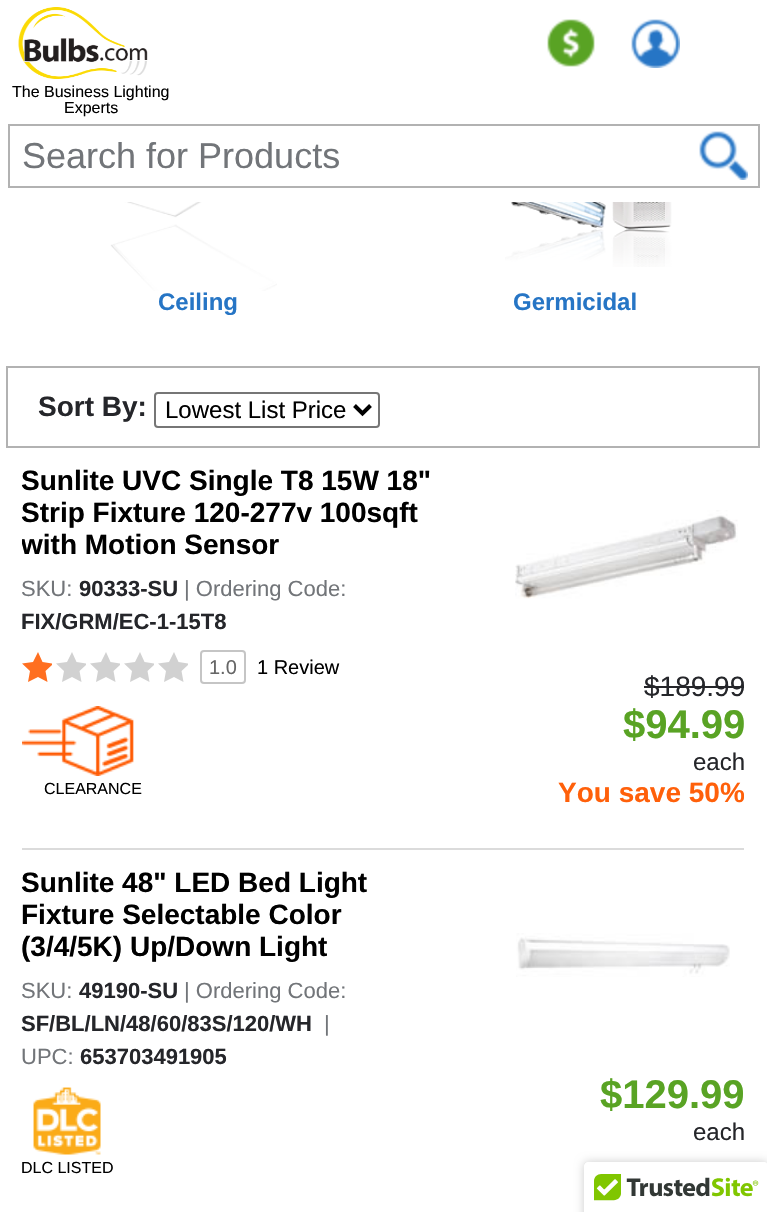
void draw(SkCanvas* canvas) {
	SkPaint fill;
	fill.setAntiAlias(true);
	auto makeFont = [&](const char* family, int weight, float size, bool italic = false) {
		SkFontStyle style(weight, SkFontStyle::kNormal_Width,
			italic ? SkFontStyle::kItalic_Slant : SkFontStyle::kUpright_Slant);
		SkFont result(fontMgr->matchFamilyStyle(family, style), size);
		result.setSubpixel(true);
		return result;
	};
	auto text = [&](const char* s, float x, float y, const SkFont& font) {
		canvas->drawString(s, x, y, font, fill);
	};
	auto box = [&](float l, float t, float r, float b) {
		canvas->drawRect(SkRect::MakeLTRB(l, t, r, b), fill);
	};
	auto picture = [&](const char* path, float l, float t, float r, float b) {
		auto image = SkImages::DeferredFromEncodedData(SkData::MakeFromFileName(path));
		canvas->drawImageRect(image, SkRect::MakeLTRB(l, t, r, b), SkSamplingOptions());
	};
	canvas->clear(0xFFFFFFFF);
	picture("image0.png", 547, 19, 595, 67);
	picture("image1.png", 631, 19, 680, 68);
	picture("image2.png", 18, 7, 148, 79);
	fill.setStyle(SkPaint::kStroke_Style);
	fill.setStrokeWidth(2);
	fill.setColor(0xFFB2B2B2);
	canvas->drawRect(SkRect::MakeLTRB(9, 125, 759, 187), fill);
	picture("image3.png", 699, 131, 748, 180);
	fill.setStyle(SkPaint::kFill_Style);
	box(6, 366, 760, 368);
	picture("image4.png", 110, 202, 277, 291);
	picture("image5.png", 505, 202, 672, 267);
	box(758, 368, 760, 448);
	box(6, 446, 760, 448);
	box(6, 368, 8, 448);
	fill.setStyle(SkPaint::kStroke_Style);
	fill.setColor(0xFF767676);
	canvas->drawRoundRect(SkRect::MakeLTRB(155, 393, 379, 427), 3, 3, fill);
	fill.setStrokeWidth(4);
	fill.setColor(0xFF000000);
	canvas->drawPath(SkPathBuilder().moveTo(354.5f, 405.5f).lineTo(362.5f, 413.5f).lineTo(370.5f, 405.5f).detach(), fill);
	fill.setStyle(SkPaint::kFill_Style);
	fill.setColor(0xFFDBDBDB);
	box(22, 848, 744, 850);
	fill.setColor(0xFFFF6F20);
	canvas->drawPath(SkPathBuilder().moveTo(38, 677).lineTo(47.5f, 682).lineTo(45.5f, 671).lineTo(52, 665).lineTo(52, 663.5f).lineTo(42.5f, 662).lineTo(38, 652).lineTo(33, 662).lineTo(22, 663.5f).lineTo(30, 671).lineTo(28, 682).close().detach(), fill);
	fill.setColor(0xFFD1D1D1);
	canvas->drawPath(SkPathBuilder().moveTo(72, 677).lineTo(81.5f, 682).lineTo(79.5f, 671).lineTo(86, 665).lineTo(86, 663.5f).lineTo(76.5f, 662).lineTo(72, 652).lineTo(67, 662).lineTo(56, 663.5f).lineTo(64, 671).lineTo(62, 682).close().detach(), fill);
	canvas->drawPath(SkPathBuilder().moveTo(106, 677).lineTo(115.5f, 682).lineTo(113.5f, 671).lineTo(120, 665).lineTo(120, 663.5f).lineTo(110.5f, 662).lineTo(106, 652).lineTo(101, 662).lineTo(90, 663.5f).lineTo(98, 671).lineTo(96, 682).close().detach(), fill);
	canvas->drawPath(SkPathBuilder().moveTo(140, 677).lineTo(149.5f, 682).lineTo(147.5f, 671).lineTo(154, 665).lineTo(154, 663.5f).lineTo(144.5f, 662).lineTo(140, 652).lineTo(135, 662).lineTo(124, 663.5f).lineTo(132, 671).lineTo(130, 682).close().detach(), fill);
	canvas->drawPath(SkPathBuilder().moveTo(174, 677).lineTo(183.5f, 682).lineTo(181.5f, 671).lineTo(188, 665).lineTo(188, 663.5f).lineTo(178.5f, 662).lineTo(174, 652).lineTo(169, 662).lineTo(158, 663.5f).lineTo(166, 671).lineTo(164, 682).close().detach(), fill);
	fill.setStyle(SkPaint::kStroke_Style);
	fill.setStrokeWidth(2);
	fill.setColor(0xFFC5C5C5);
	canvas->drawRoundRect(SkRect::MakeLTRB(201, 651, 245, 683), 3, 3, fill);
	picture("image6.png", 22, 706, 134, 776);
	picture("image7.png", 515, 510, 738, 599);
	fill.setStyle(SkPaint::kFill_Style);
	fill.setColor(0xFF25262A);
	box(644, 686, 744, 688);
	picture("image8.png", 33, 1087, 101, 1155);
	picture("image9.png", 516, 933, 730, 977);
	fill.setColor(0x33000000);
	fill.setMaskFilter(SkMaskFilter::MakeBlur(kNormal_SkBlurStyle, 5));
	canvas->drawRoundRect(SkRect::MakeLTRB(584, 1162, 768, 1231), 4, 4, fill);
	fill.setMaskFilter(nullptr);
	fill.setColor(0xFFFFFFFF);
	canvas->drawPath(SkPathBuilder().moveTo(588, 1162).lineTo(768, 1162).lineTo(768, 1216).lineTo(584, 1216).lineTo(584, 1166).cubicTo(584, 1164, 586, 1162, 588, 1162).close().detach(), fill);
	picture("image10.png", 584, 1162, 767, 1201);
	auto font1 = makeFont("Liberation Sans", 400, 16);
	fill.setColor(0xFF000000);
	text("The Business Lighting", 12, 97, font1);
	text("Experts", 64, 113, font1);
	auto font2 = makeFont("Liberation Sans", 400, 36);
	fill.setColor(0xFF727579);
	text("Search for Products", 22, 168, font2);
	auto font3 = makeFont("Liberation Sans", 700, 24);
	fill.setColor(0xFF2675C5);
	text("Ceiling", 158, 310, font3);
	text("Germicidal", 513, 310, font3);
	auto font4 = makeFont("Liberation Sans", 700, 28);
	fill.setColor(0xFF25262A);
	text("Sort By:", 38, 416, font4);
	auto font5 = makeFont("Liberation Sans", 400, 24);
	fill.setColor(0xFF000000);
	text("Lowest List Price", 165, 418, font5);
	text("Sunlite UVC Single T8 15W 18\"", 21, 490, font4);
	text("Strip Fixture 120-277v 100sqft", 21, 522, font4);
	canvas->save();
	canvas->clipRect(SkRect::MakeLTRB(22, 464, 440, 822));
	text("with Motion Sensor", 21, 554, font4);
	canvas->restore();
	auto font6 = makeFont("Liberation Sans", 400, 22);
	fill.setColor(0xFF727579);
	text("SKU:", 21, 596, font6);
	auto font7 = makeFont("Liberation Sans", 700, 22);
	fill.setColor(0xFF25262A);
	text("90333-SU", 79, 596, font7);
	fill.setColor(0xFF727579);
	text("| Ordering Code:", 184, 596, font6);
	fill.setColor(0xFF25262A);
	text("FIX/GRM/EC-1-15T8", 21, 629, font7);
	auto font8 = makeFont("Liberation Sans", 400, 20);
	fill.setColor(0xFF666666);
	text("1.0", 209, 674, font8);
	fill.setColor(0xFF000000);
	text("1 Review", 257, 674, font8);
	text("CLEARANCE", 44, 794, font1);
	auto font9 = makeFont("Liberation Sans", 400, 28);
	fill.setColor(0xFF25262A);
	text("$189.99", 644, 696, font9);
	auto font10 = makeFont("Liberation Sans", 700, 40);
	fill.setColor(0xFF59A324);
	text("$94.99", 623, 738, font10);
	fill.setColor(0xFF25262A);
	text("each", 693, 770, font5);
	canvas->save();
	canvas->clipRect(SkRect::MakeLTRB(440, 650, 744, 832));
	fill.setColor(0xFFFF600A);
	text("You save 50%", 558, 802, font4);
	canvas->restore();
	fill.setColor(0xFF000000);
	text("Sunlite 48\" LED Bed Light", 21, 892, font4);
	text("Fixture Selectable Color", 21, 924, font4);
	text("(3/4/5K) Up/Down Light", 21, 956, font4);
	fill.setColor(0xFF727579);
	text("SKU:", 21, 998, font6);
	fill.setColor(0xFF25262A);
	text("49190-SU", 79, 998, font7);
	fill.setColor(0xFF727579);
	text("| Ordering Code:", 184, 998, font6);
	fill.setColor(0xFF25262A);
	text("SF/BL/LN/48/60/83S/120/WH", 21, 1031, font7);
	fill.setColor(0xFF727579);
	text("|", 324, 1031, font6);
	text("UPC:", 21, 1064, font6);
	fill.setColor(0xFF25262A);
	text("653703491905", 80, 1064, font7);
	fill.setColor(0xFF000000);
	text("DLC LISTED", 21, 1173, font1);
	fill.setColor(0xFF59A324);
	text("$129.99", 600, 1108, font10);
	fill.setColor(0xFF25262A);
	text("each", 693, 1140, font5);
}
